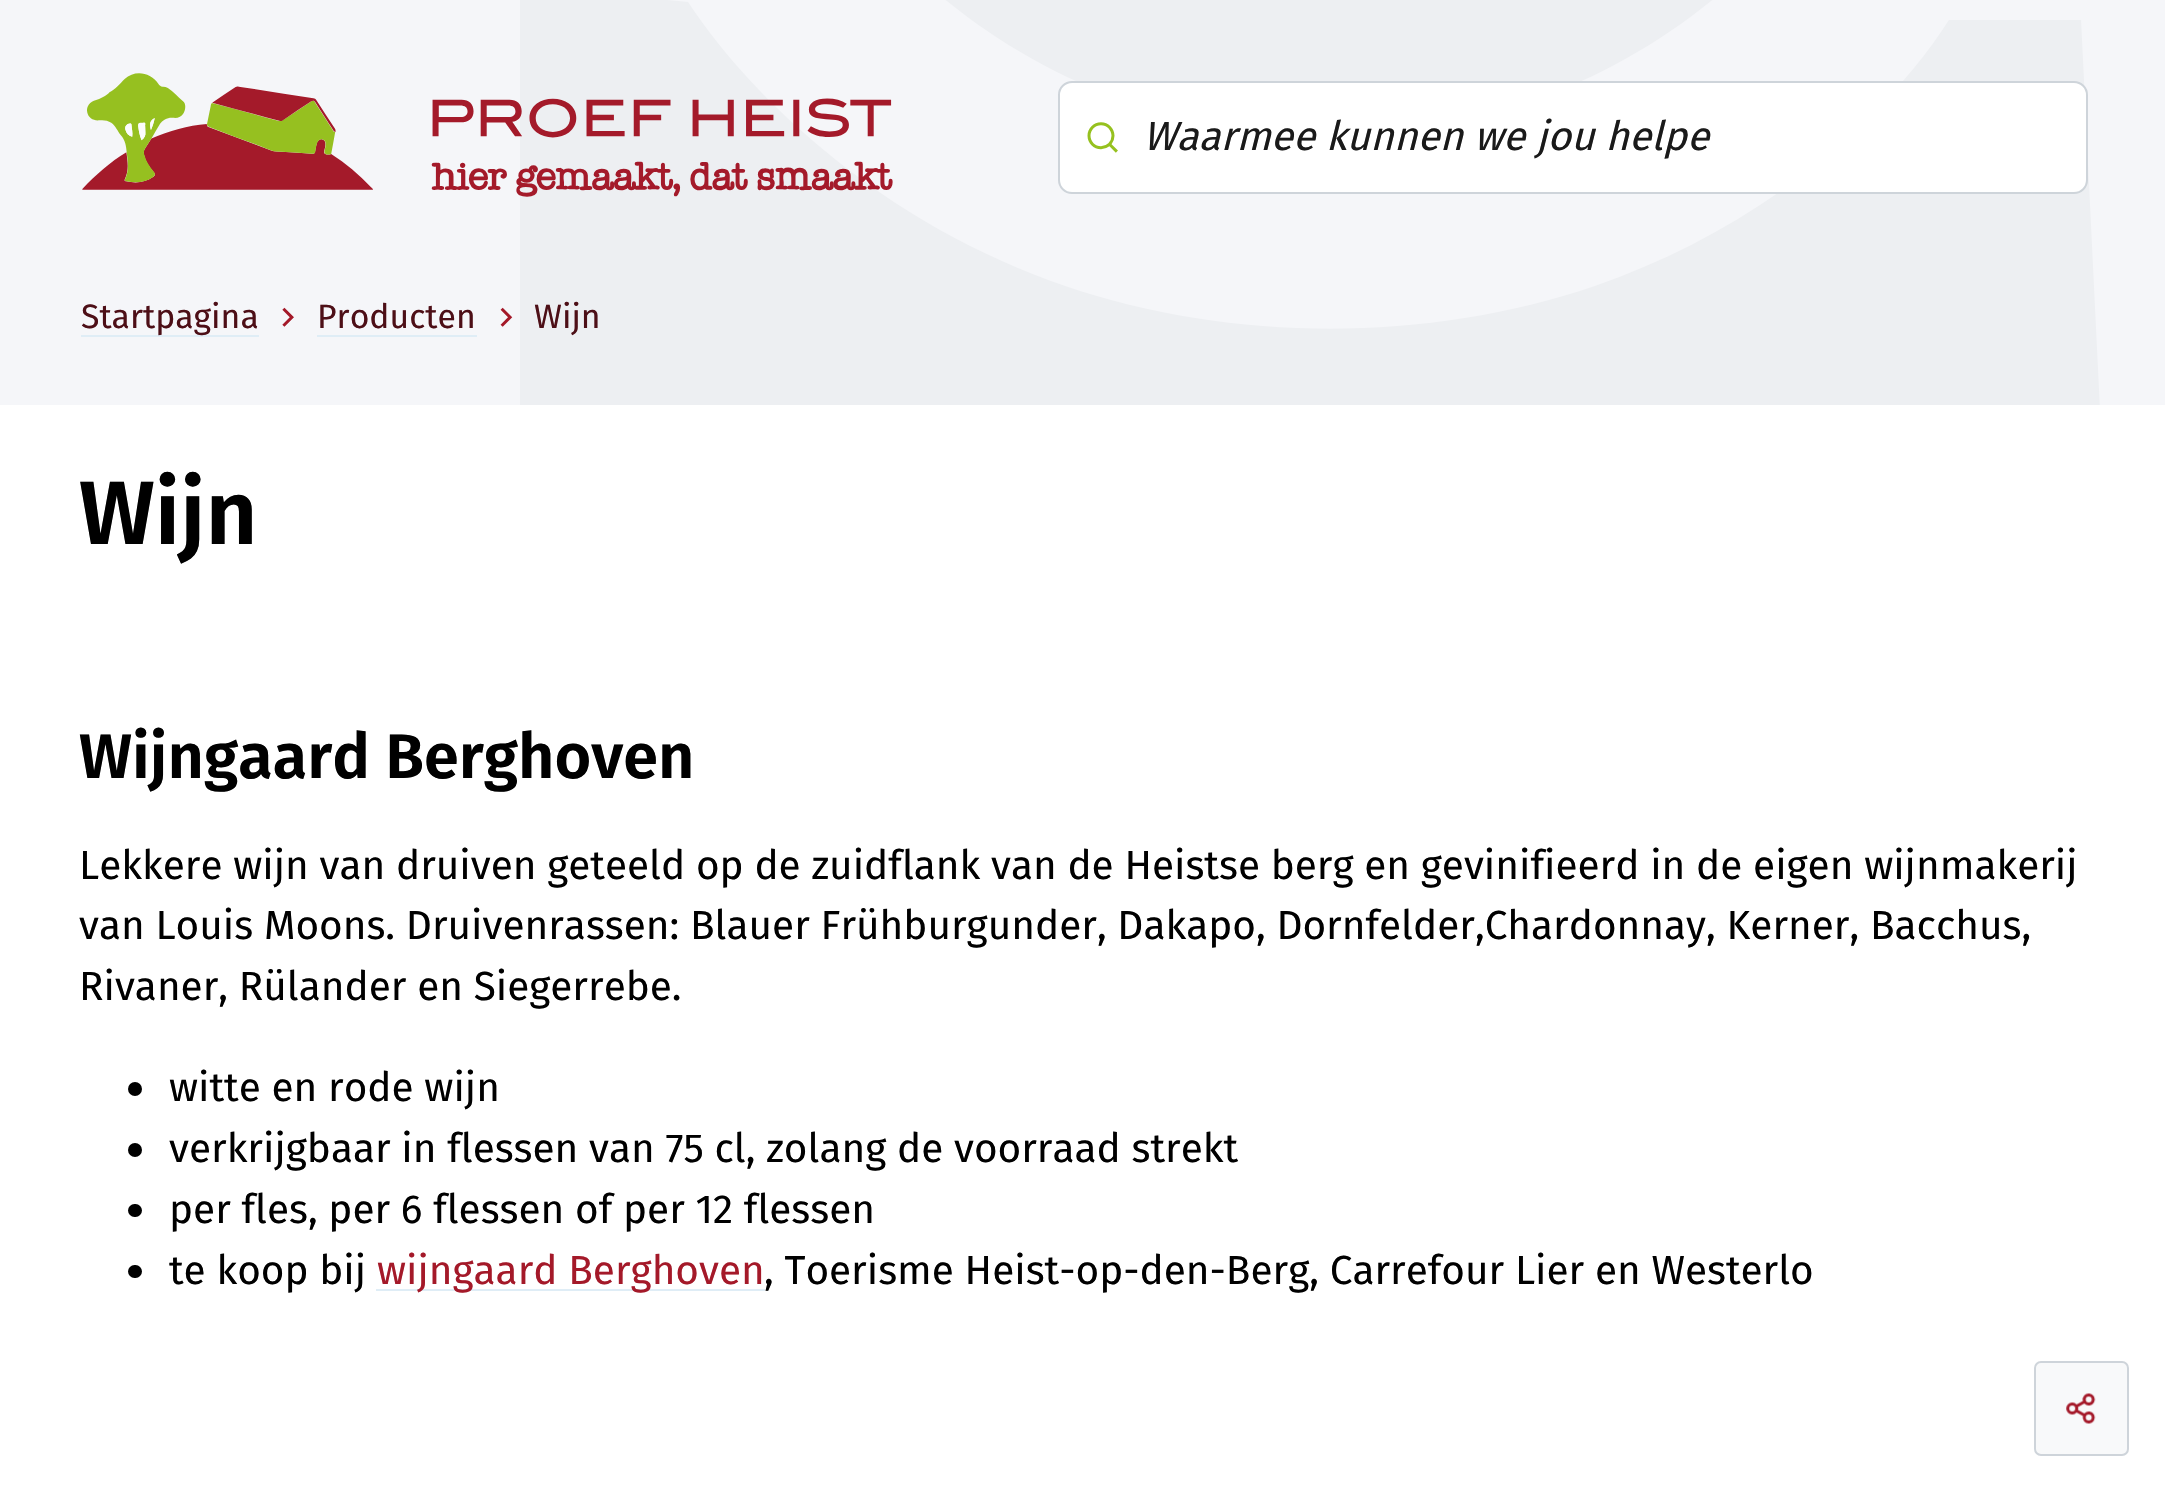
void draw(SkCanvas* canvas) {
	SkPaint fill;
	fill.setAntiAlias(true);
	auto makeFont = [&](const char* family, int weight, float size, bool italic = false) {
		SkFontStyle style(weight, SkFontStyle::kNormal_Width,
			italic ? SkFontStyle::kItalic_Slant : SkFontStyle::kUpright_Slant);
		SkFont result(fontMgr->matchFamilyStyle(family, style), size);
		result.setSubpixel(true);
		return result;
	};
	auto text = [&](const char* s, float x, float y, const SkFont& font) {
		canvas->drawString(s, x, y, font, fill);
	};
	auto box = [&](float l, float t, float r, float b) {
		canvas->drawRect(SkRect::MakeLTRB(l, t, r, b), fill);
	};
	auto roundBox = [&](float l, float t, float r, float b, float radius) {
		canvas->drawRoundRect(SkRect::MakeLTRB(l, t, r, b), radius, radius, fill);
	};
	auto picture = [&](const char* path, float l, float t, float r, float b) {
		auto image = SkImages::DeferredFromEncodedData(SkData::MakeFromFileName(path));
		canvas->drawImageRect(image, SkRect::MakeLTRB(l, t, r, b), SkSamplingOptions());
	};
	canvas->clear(0xFFFFFFFF);
	fill.setColor(0xFFEDEFF2);
	box(520, 0, 2100, 405);
	canvas->save();
	canvas->clipRect(SkRect::MakeLTRB(0, 0, 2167, 405));
	fill.setColor(0xFFF5F6F9);
	canvas->drawPath(SkPathBuilder().moveTo(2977, 823).lineTo(2120, 823).lineTo(2081, 20).lineTo(1949, 20).cubicTo(1907, 86, 1844, 146, 1781, 191).cubicTo(1724, 231, 1661, 263, 1595, 286).cubicTo(1428, 343, 1232, 343, 1065, 286).cubicTo(978, 256, 896, 210, 825, 151).cubicTo(774, 109, 725, 58, 688, 2).lineTo(520, -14).lineTo(520, 823).lineTo(-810, 823).lineTo(-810, -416).lineTo(724, -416).cubicTo(737, -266, 806, -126, 918, -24).cubicTo(1030, 79, 1176, 136, 1329, 136).cubicTo(1481, 136, 1628, 79, 1740, -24).cubicTo(1851, -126, 1920, -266, 1934, -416).lineTo(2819, -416).close().detach(), fill);
	canvas->restore();
	picture("image0.png", 82, 73, 893, 197);
	fill.setColor(0xFFFFFFFF);
	canvas->drawRoundRect(SkRect::MakeLTRB(1059, 82, 2087, 193), 13, 13, fill);
	fill.setStyle(SkPaint::kStroke_Style);
	fill.setStrokeWidth(2);
	fill.setColor(0xFFCED4DA);
	canvas->drawRoundRect(SkRect::MakeLTRB(1059, 82, 2087, 193), 13, 13, fill);
	picture("image1.png", 1087, 122, 1118, 153);
	fill.setStyle(SkPaint::kFill_Style);
	fill.setColor(0xFFDFEDF6);
	box(81, 335, 259, 337);
	picture("image2.png", 282, 307, 294, 327);
	box(317, 335, 477, 337);
	picture("image3.png", 500, 307, 513, 327);
	fill.setColor(0xFF000000);
	canvas->drawCircle(135, 1089, 7, fill);
	canvas->drawCircle(135, 1150, 7, fill);
	roundBox(128, 1204, 142, 1217, 6.5f);
	roundBox(128, 1265, 142, 1278, 6.5f);
	fill.setColor(0xFFDFEDF6);
	box(376, 1289, 765, 1291);
	fill.setColor(0xFFF8F9FA);
	canvas->drawRoundRect(SkRect::MakeLTRB(2035, 1362, 2128, 1455), 6, 6, fill);
	fill.setStyle(SkPaint::kStroke_Style);
	fill.setColor(0xFFCED4DA);
	canvas->drawRoundRect(SkRect::MakeLTRB(2035, 1362, 2128, 1455), 6, 6, fill);
	picture("image4.png", 2066, 1393, 2096, 1424);
	auto font1 = makeFont("Fira Sans", 400, 40.5f, true);
	fill.setStyle(SkPaint::kFill_Style);
	fill.setColor(0xFF1A1A1A);
	text("Waarmee kunnen we jou helpe", 1143, 150, font1);
	auto font2 = makeFont("Fira Sans", 400, 33.75f);
	fill.setColor(0xFF4D0F17);
	text("Startpagina", 81, 328, font2);
	text("Producten", 317, 328, font2);
	text("Wijn", 534, 328, font2);
	auto font3 = makeFont("Fira Sans", 600, 90);
	fill.setColor(0xFF000000);
	text("Wijn", 79, 544, font3);
	auto font4 = makeFont("Fira Sans", 600, 63);
	text("Wijngaard Berghoven", 79, 778, font4);
	auto font5 = makeFont("Fira Sans", 400, 40.5f);
	text("Lekkere wijn van druiven geteeld op de zuidflank van de Heistse berg en gevinifieerd in de eigen wijnmakerij", 79, 879, font5);
	text("van Louis Moons. Druivenrassen: Blauer Frühburgunder, Dakapo, Dornfelder,Chardonnay, Kerner, Bacchus,", 79, 939, font5);
	text("Rivaner, Rülander en Siegerrebe.", 79, 1000, font5);
	text("witte en rode wijn", 169, 1101, font5);
	text("verkrijgbaar in flessen van 75 cl, zolang de voorraad strekt", 169, 1162, font5);
	text("per fles, per 6 flessen of per 12 flessen", 169, 1223, font5);
	text("te koop bij", 169, 1284, font5);
	fill.setColor(0xFFA41929);
	text("wijngaard Berghoven", 377, 1284, font5);
	fill.setColor(0xFF000000);
	text(", Toerisme Heist-op-den-Berg, Carrefour Lier en Westerlo", 764, 1284, font5);
}
